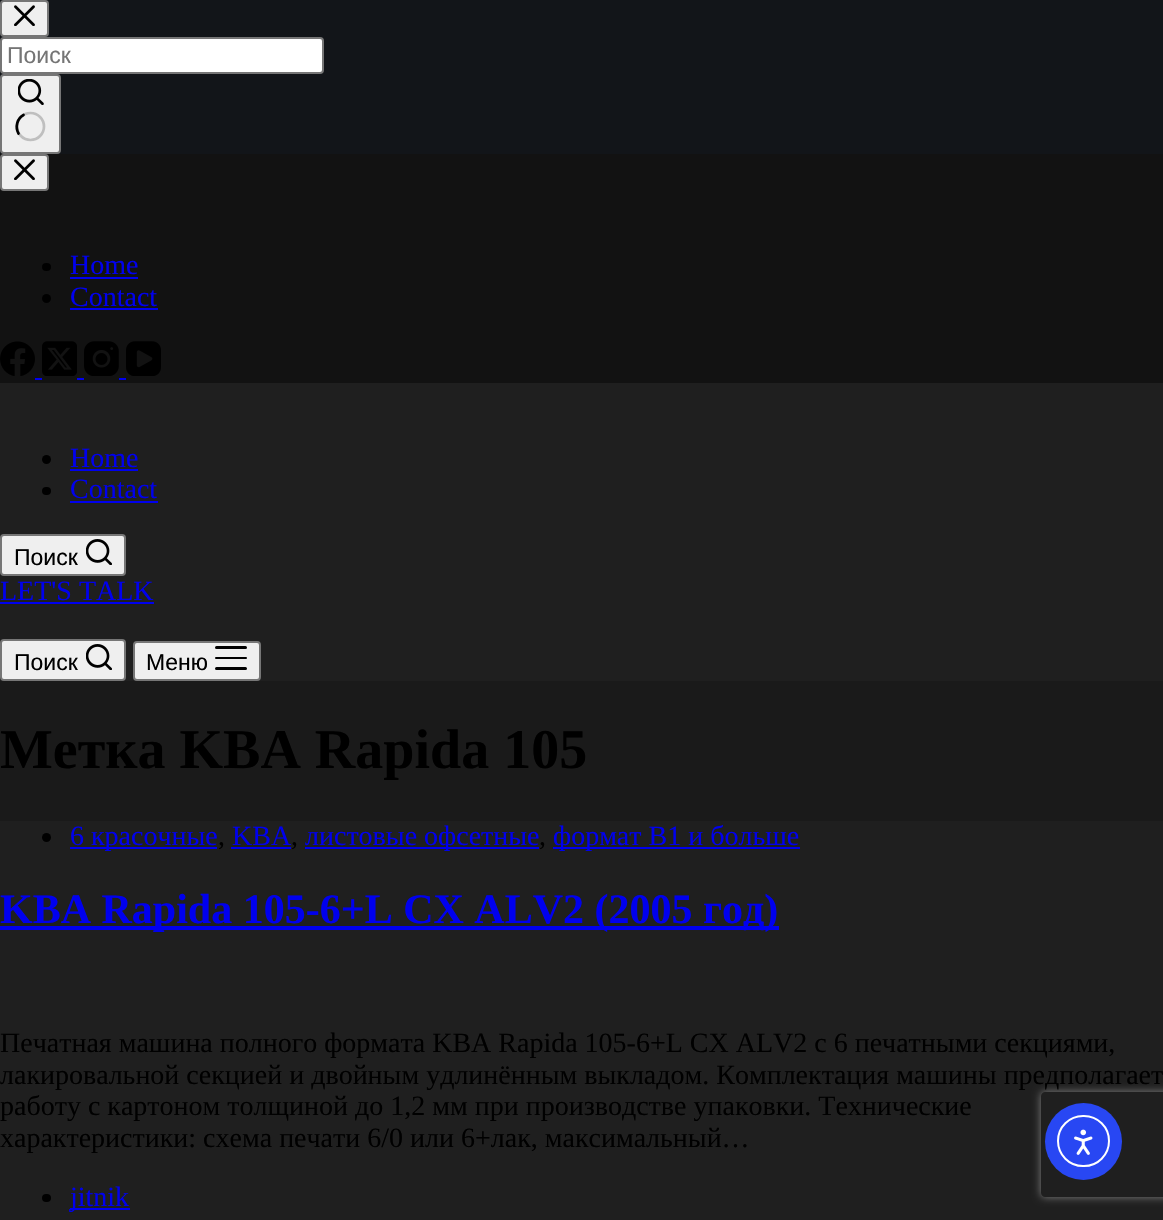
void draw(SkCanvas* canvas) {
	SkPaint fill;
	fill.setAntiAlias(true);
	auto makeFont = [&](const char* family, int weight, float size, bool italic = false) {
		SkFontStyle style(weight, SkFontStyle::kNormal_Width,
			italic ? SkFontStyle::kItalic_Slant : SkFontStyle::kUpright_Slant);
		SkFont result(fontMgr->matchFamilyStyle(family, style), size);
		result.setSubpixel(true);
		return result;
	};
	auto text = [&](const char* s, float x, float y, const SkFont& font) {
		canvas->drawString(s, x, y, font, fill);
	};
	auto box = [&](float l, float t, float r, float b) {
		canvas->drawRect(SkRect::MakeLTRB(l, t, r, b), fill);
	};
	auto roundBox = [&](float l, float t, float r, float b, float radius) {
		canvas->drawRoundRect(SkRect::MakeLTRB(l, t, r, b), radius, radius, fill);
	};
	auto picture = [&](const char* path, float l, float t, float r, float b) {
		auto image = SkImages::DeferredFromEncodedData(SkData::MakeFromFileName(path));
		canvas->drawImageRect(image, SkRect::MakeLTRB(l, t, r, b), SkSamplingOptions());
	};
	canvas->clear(0xFF1A1A1A);
	fill.setColor(0xFF121519);
	box(0, 0, 1163, 154);
	fill.setColor(0xFFEFEFEF);
	canvas->drawRoundRect(SkRect::MakeLTRB(1, 1, 48, 36), 3, 3, fill);
	fill.setStyle(SkPaint::kStroke_Style);
	fill.setStrokeWidth(2);
	fill.setColor(0xFF767676);
	canvas->drawRoundRect(SkRect::MakeLTRB(1, 1, 48, 36), 3, 3, fill);
	picture("image0.png", 14, 5, 35, 26);
	fill.setStyle(SkPaint::kFill_Style);
	fill.setColor(0xFFFFFFFF);
	canvas->drawRoundRect(SkRect::MakeLTRB(1, 38, 323, 73), 3, 3, fill);
	fill.setStyle(SkPaint::kStroke_Style);
	fill.setColor(0xFF767676);
	canvas->drawRoundRect(SkRect::MakeLTRB(1, 38, 323, 73), 3, 3, fill);
	fill.setStyle(SkPaint::kFill_Style);
	fill.setColor(0xFFEFEFEF);
	canvas->drawRoundRect(SkRect::MakeLTRB(1, 75, 60, 153), 3, 3, fill);
	fill.setStyle(SkPaint::kStroke_Style);
	fill.setColor(0xFF767676);
	canvas->drawRoundRect(SkRect::MakeLTRB(1, 75, 60, 153), 3, 3, fill);
	picture("image1.png", 18, 79, 44, 105);
	fill.setStrokeWidth(2.7f);
	fill.setColor(0xFFBFBFBF);
	canvas->drawCircle(30.5f, 126.5f, 13.5f, fill);
	fill.setStrokeCap(SkPaint::kRound_Cap);
	fill.setColor(0xFF000000);
	canvas->drawPath(SkPathBuilder().moveTo(18.5f, 133.5f).cubicTo(15, 127, 17, 118.5f, 23.5f, 115).detach(), fill);
	fill.setStyle(SkPaint::kFill_Style);
	fill.setColor(0xFF121212);
	box(0, 154, 1163, 383);
	fill.setColor(0xFFEFEFEF);
	canvas->drawRoundRect(SkRect::MakeLTRB(1, 155, 48, 190), 3, 3, fill);
	fill.setStyle(SkPaint::kStroke_Style);
	fill.setStrokeWidth(2);
	fill.setStrokeCap(SkPaint::kButt_Cap);
	fill.setColor(0xFF767676);
	canvas->drawRoundRect(SkRect::MakeLTRB(1, 155, 48, 190), 3, 3, fill);
	picture("image0.png", 14, 159, 35, 180);
	fill.setStyle(SkPaint::kFill_Style);
	fill.setColor(0xFF000000);
	roundBox(42, 263, 51, 271, 4);
	fill.setColor(0xFF0000EE);
	box(70, 277, 138, 279);
	fill.setColor(0xFF000000);
	canvas->drawCircle(46.5f, 298.5f, 4.5f, fill);
	fill.setColor(0xFF0000EE);
	box(70, 308, 158, 310);
	picture("image2.png", 0, 341, 35, 376);
	picture("image3.png", 42, 341, 77, 376);
	picture("image4.png", 84, 341, 119, 376);
	picture("image5.png", 126, 341, 161, 376);
	box(35, 378, 42, 380);
	box(77, 378, 84, 380);
	box(119, 378, 126, 380);
	fill.setColor(0xFF1F1F1F);
	box(0, 383, 1163, 681);
	fill.setColor(0xFF000000);
	canvas->drawCircle(46.5f, 459.5f, 4.5f, fill);
	fill.setColor(0xFF0000EE);
	box(70, 469, 138, 471);
	fill.setColor(0xFF000000);
	roundBox(42, 487, 51, 495, 4);
	fill.setColor(0xFF0000EE);
	box(70, 501, 158, 503);
	fill.setColor(0xFFEFEFEF);
	canvas->drawRoundRect(SkRect::MakeLTRB(1, 535, 125, 575), 3, 3, fill);
	fill.setStyle(SkPaint::kStroke_Style);
	fill.setColor(0xFF767676);
	canvas->drawRoundRect(SkRect::MakeLTRB(1, 535, 125, 575), 3, 3, fill);
	picture("image6.png", 86, 539, 112, 565);
	fill.setStyle(SkPaint::kFill_Style);
	fill.setColor(0xFF0000EE);
	box(0, 602, 154, 604);
	fill.setColor(0xFFEFEFEF);
	canvas->drawRoundRect(SkRect::MakeLTRB(1, 640, 125, 680), 3, 3, fill);
	fill.setStyle(SkPaint::kStroke_Style);
	fill.setColor(0xFF767676);
	canvas->drawRoundRect(SkRect::MakeLTRB(1, 640, 125, 680), 3, 3, fill);
	picture("image6.png", 86, 644, 112, 670);
	fill.setStyle(SkPaint::kFill_Style);
	fill.setColor(0xFFEFEFEF);
	canvas->drawRoundRect(SkRect::MakeLTRB(134, 642, 260, 680), 3, 3, fill);
	fill.setStyle(SkPaint::kStroke_Style);
	fill.setColor(0xFF767676);
	canvas->drawRoundRect(SkRect::MakeLTRB(134, 642, 260, 680), 3, 3, fill);
	fill.setStyle(SkPaint::kFill_Style);
	fill.setColor(0xFF000000);
	roundBox(215, 646, 247, 649, 1.5f);
	roundBox(215, 657, 247, 659, 1);
	roundBox(215, 667, 247, 670, 1.5f);
	fill.setColor(0xFF1F1F1F);
	box(0, 821, 1163, 1220);
	fill.setColor(0xFF000000);
	canvas->drawCircle(46.5f, 837.5f, 4.5f, fill);
	fill.setColor(0xFF0000EE);
	box(70, 847, 217, 849);
	box(231, 847, 291, 849);
	box(305, 847, 539, 849);
	box(553, 847, 800, 849);
	box(0, 926, 779, 930);
	fill.setColor(0xFF000000);
	roundBox(42, 1194, 51, 1202, 4);
	fill.setColor(0xFF0000EE);
	box(70, 1208, 130, 1210);
	canvas->save();
	canvas->clipPath(SkPathBuilder(SkPathFillType::kEvenOdd).moveTo(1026, 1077).lineTo(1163, 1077).lineTo(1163, 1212).lineTo(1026, 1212).close().moveTo(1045, 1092).lineTo(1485, 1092).cubicTo(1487, 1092, 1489, 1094, 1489, 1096).lineTo(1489, 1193).cubicTo(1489, 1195, 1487, 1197, 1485, 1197).lineTo(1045, 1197).cubicTo(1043, 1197, 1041, 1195, 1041, 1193).lineTo(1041, 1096).cubicTo(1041, 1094, 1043, 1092, 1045, 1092).close().detach(), true);
	fill.setColor(0xFF808080);
	fill.setMaskFilter(SkMaskFilter::MakeBlur(kNormal_SkBlurStyle, 4.5f));
	canvas->drawRoundRect(SkRect::MakeLTRB(1041, 1092, 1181, 1197), 4, 4, fill);
	fill.setMaskFilter(nullptr);
	canvas->restore();
	fill.setColor(0xFF2847F3);
	canvas->drawCircle(1083.5f, 1141.5f, 38.5f, fill);
	fill.setStyle(SkPaint::kStroke_Style);
	fill.setColor(0xFFFFFFFF);
	canvas->drawRoundRect(SkRect::MakeLTRB(1058, 1116, 1109, 1166), 25, 25, fill);
	picture("image7.png", 1074, 1129, 1093, 1155);
	auto font1 = makeFont("Liberation Sans", 400, 23);
	fill.setStyle(SkPaint::kFill_Style);
	fill.setColor(0xFF757575);
	text("Поиск", 7, 63, font1);
	auto font2 = makeFont("Liberation Serif", 400, 28);
	fill.setColor(0xFF0000EE);
	text("Home", 70, 274, font2);
	text("Contact", 70, 306, font2);
	text("Home", 70, 467, font2);
	text("Contact", 70, 498, font2);
	fill.setColor(0xFF000000);
	text("Поиск", 14, 565, font1);
	fill.setColor(0xFF0000EE);
	text("LET'S TALK", 0, 600, font2);
	fill.setColor(0xFF000000);
	text("Поиск", 14, 670, font1);
	text("Меню", 146, 670, font1);
	auto font3 = makeFont("Liberation Serif", 700, 56);
	text("Метка KBA Rapida 105", 0, 768, font3);
	fill.setColor(0xFF0000EE);
	text("6 красочные", 70, 845, font2);
	text("KBA", 232, 845, font2);
	text("листовые офсетные", 305, 845, font2);
	text("формат B1 и больше", 553, 845, font2);
	fill.setColor(0xFF000000);
	text(",", 218, 845, font2);
	text(",", 291, 845, font2);
	text(",", 539, 845, font2);
	auto font4 = makeFont("Liberation Serif", 700, 42);
	fill.setColor(0xFF0000EE);
	text("KBA Rapida 105-6+L CX ALV2 (2005 год)", 0, 923, font4);
	fill.setColor(0xFF000000);
	text("Печатная машина полного формата KBA Rapida 105-6+L CX ALV2 с 6 печатными секциями,", 0, 1052, font2);
	text("лакировальной секцией и двойным удлинённым выкладом. Комплектация машины предполагает", 0, 1084, font2);
	text("работу с картоном толщиной до 1,2 мм при производстве упаковки. Технические", 0, 1115, font2);
	text("характеристики: схема печати 6/0 или 6+лак, максимальный…", 0, 1147, font2);
	fill.setColor(0xFF0000EE);
	text("jitnik", 70, 1206, font2);
}
